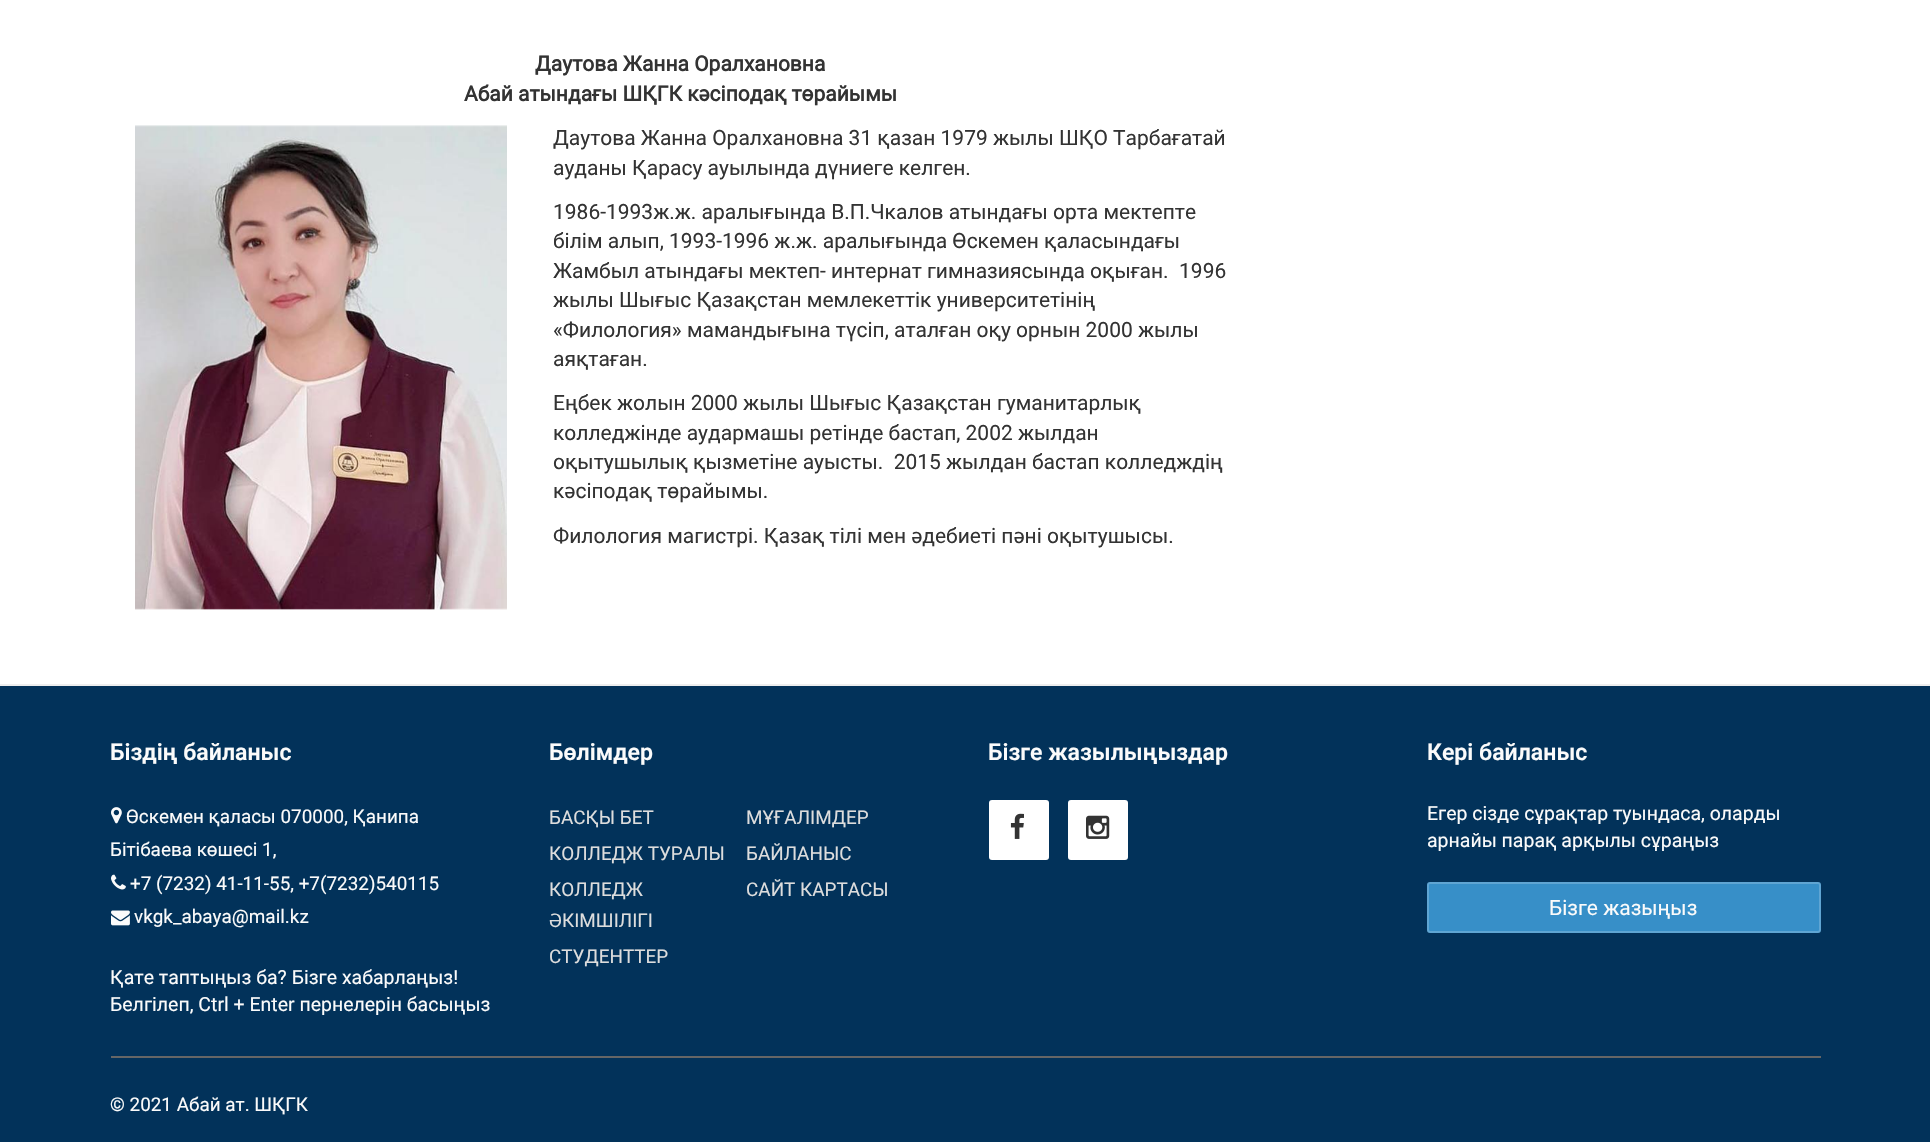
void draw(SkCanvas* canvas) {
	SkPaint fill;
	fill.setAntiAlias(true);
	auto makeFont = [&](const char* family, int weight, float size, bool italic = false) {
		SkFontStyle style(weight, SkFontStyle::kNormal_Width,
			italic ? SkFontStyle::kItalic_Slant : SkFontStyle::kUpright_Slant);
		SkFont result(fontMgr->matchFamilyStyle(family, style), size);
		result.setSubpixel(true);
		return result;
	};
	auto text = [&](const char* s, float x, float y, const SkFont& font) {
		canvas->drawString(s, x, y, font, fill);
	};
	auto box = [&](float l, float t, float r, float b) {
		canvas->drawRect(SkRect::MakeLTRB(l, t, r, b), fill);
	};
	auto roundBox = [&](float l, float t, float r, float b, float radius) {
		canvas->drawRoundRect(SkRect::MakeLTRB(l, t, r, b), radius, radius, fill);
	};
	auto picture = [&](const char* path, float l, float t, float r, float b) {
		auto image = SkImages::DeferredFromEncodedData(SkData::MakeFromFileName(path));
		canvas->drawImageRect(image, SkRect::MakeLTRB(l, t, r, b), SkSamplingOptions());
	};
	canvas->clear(0xFF02325A);
	fill.setColor(0xFFFFFFFF);
	box(0, 0, 1930, 684);
	fill.setColor(0xFFEEEEEE);
	box(0, 684, 1930, 686);
	picture("image0.png", 135, 125, 507, 610);
	picture("image1.png", 111, 807, 122, 824);
	picture("image2.png", 111, 874, 126, 890);
	picture("image3.png", 111, 910, 130, 926);
	fill.setColor(0xFFFFFFFF);
	roundBox(989, 800, 1049, 860, 3);
	picture("image4.png", 1010, 813, 1024, 839);
	roundBox(1068, 800, 1128, 860, 3);
	picture("image5.png", 1086, 815, 1110, 839);
	fill.setColor(0xFF378FC8);
	canvas->drawRoundRect(SkRect::MakeLTRB(1428, 883, 1820, 932), 2, 2, fill);
	fill.setStyle(SkPaint::kStroke_Style);
	fill.setStrokeWidth(2);
	fill.setColor(0xFF5FA5D3);
	canvas->drawRoundRect(SkRect::MakeLTRB(1428, 883, 1820, 932), 2, 2, fill);
	fill.setStyle(SkPaint::kFill_Style);
	fill.setColor(0xFF666666);
	box(111, 1056, 1821, 1058);
	auto font1 = makeFont("Roboto", 700, 21);
	fill.setColor(0xFF333333);
	text("Даутова Жанна Оралхановна", 535, 71, font1);
	text("Абай атындағы ШҚГК кәсіподақ төрайымы", 464, 101, font1);
	auto font2 = makeFont("Roboto", 400, 21);
	text("Даутова Жанна Оралхановна 31 қазан 1979 жылы ШҚО Тарбағатай", 553, 145, font2);
	text("ауданы Қарасу ауылында дүниеге келген.", 553, 175, font2);
	text("1986-1993ж.ж. аралығында В.П.Чкалов атындағы орта мектепте", 553, 219, font2);
	text("білім алып, 1993-1996 ж.ж. аралығында Өскемен қаласындағы", 553, 248, font2);
	text("Жамбыл атындағы мектеп- интернат гимназиясында оқыған.  1996", 553, 278, font2);
	text("жылы Шығыс Қазақстан мемлекеттік университетінің", 553, 307, font2);
	text("«Филология» мамандығына түсіп, аталған оқу орнын 2000 жылы", 553, 337, font2);
	text("аяқтаған.", 553, 366, font2);
	text("Еңбек жолын 2000 жылы Шығыс Қазақстан гуманитарлық", 553, 410, font2);
	text("колледжінде аудармашы ретінде бастап, 2002 жылдан", 553, 440, font2);
	text("оқытушылық қызметіне ауысты.  2015 жылдан бастап колледждің", 553, 469, font2);
	text("кәсіподақ төрайымы.", 553, 498, font2);
	text("Филология магистрі. Қазақ тілі мен әдебиеті пәні оқытушысы.", 553, 543, font2);
	auto font3 = makeFont("Roboto", 600, 23.1f);
	fill.setColor(0xFFFBFBFB);
	text("Біздің байланыс", 110, 760, font3);
	auto font4 = makeFont("Roboto", 400, 18.9f);
	text("Өскемен қаласы 070000, Қанипа", 126, 823, font4);
	text("Бітібаева көшесі 1,", 110, 856, font4);
	text("+7 (7232) 41-11-55, +7(7232)540115", 130, 890, font4);
	text("vkgk_abaya@mail.kz", 134, 923, font4);
	auto font5 = makeFont("Roboto", 400, 19.5f);
	text("Қате таптыңыз ба? Бізге хабарлаңыз!", 110, 984, font5);
	text("Белгілеп, Ctrl + Enter пернелерін басыңыз", 110, 1011, font5);
	text("Бөлімдер", 549, 760, font3);
	fill.setColor(0xFFDDDDDD);
	text("БАСҚЫ БЕТ", 549, 824, font4);
	text("КОЛЛЕДЖ ТУРАЛЫ", 549, 860, font4);
	text("КОЛЛЕДЖ", 549, 896, font4);
	text("ӘКІМШІЛІГІ", 549, 927, font4);
	text("СТУДЕНТТЕР", 549, 963, font4);
	text("МҰҒАЛІМДЕР", 746, 824, font4);
	text("БАЙЛАНЫС", 746, 860, font4);
	text("САЙТ КАРТАСЫ", 746, 896, font4);
	fill.setColor(0xFFFBFBFB);
	text("Бізге жазылыңыздар", 988, 760, font3);
	text("Кері байланыс", 1427, 760, font3);
	text("Егер сізде сұрақтар туындаса, оларды", 1427, 820, font5);
	text("арнайы парақ арқылы сұраңыз", 1427, 847, font5);
	text("Бізге жазыңыз", 1549, 915, font2);
	text("© 2021 Абай ат. ШҚГК", 110, 1111, font4);
}
